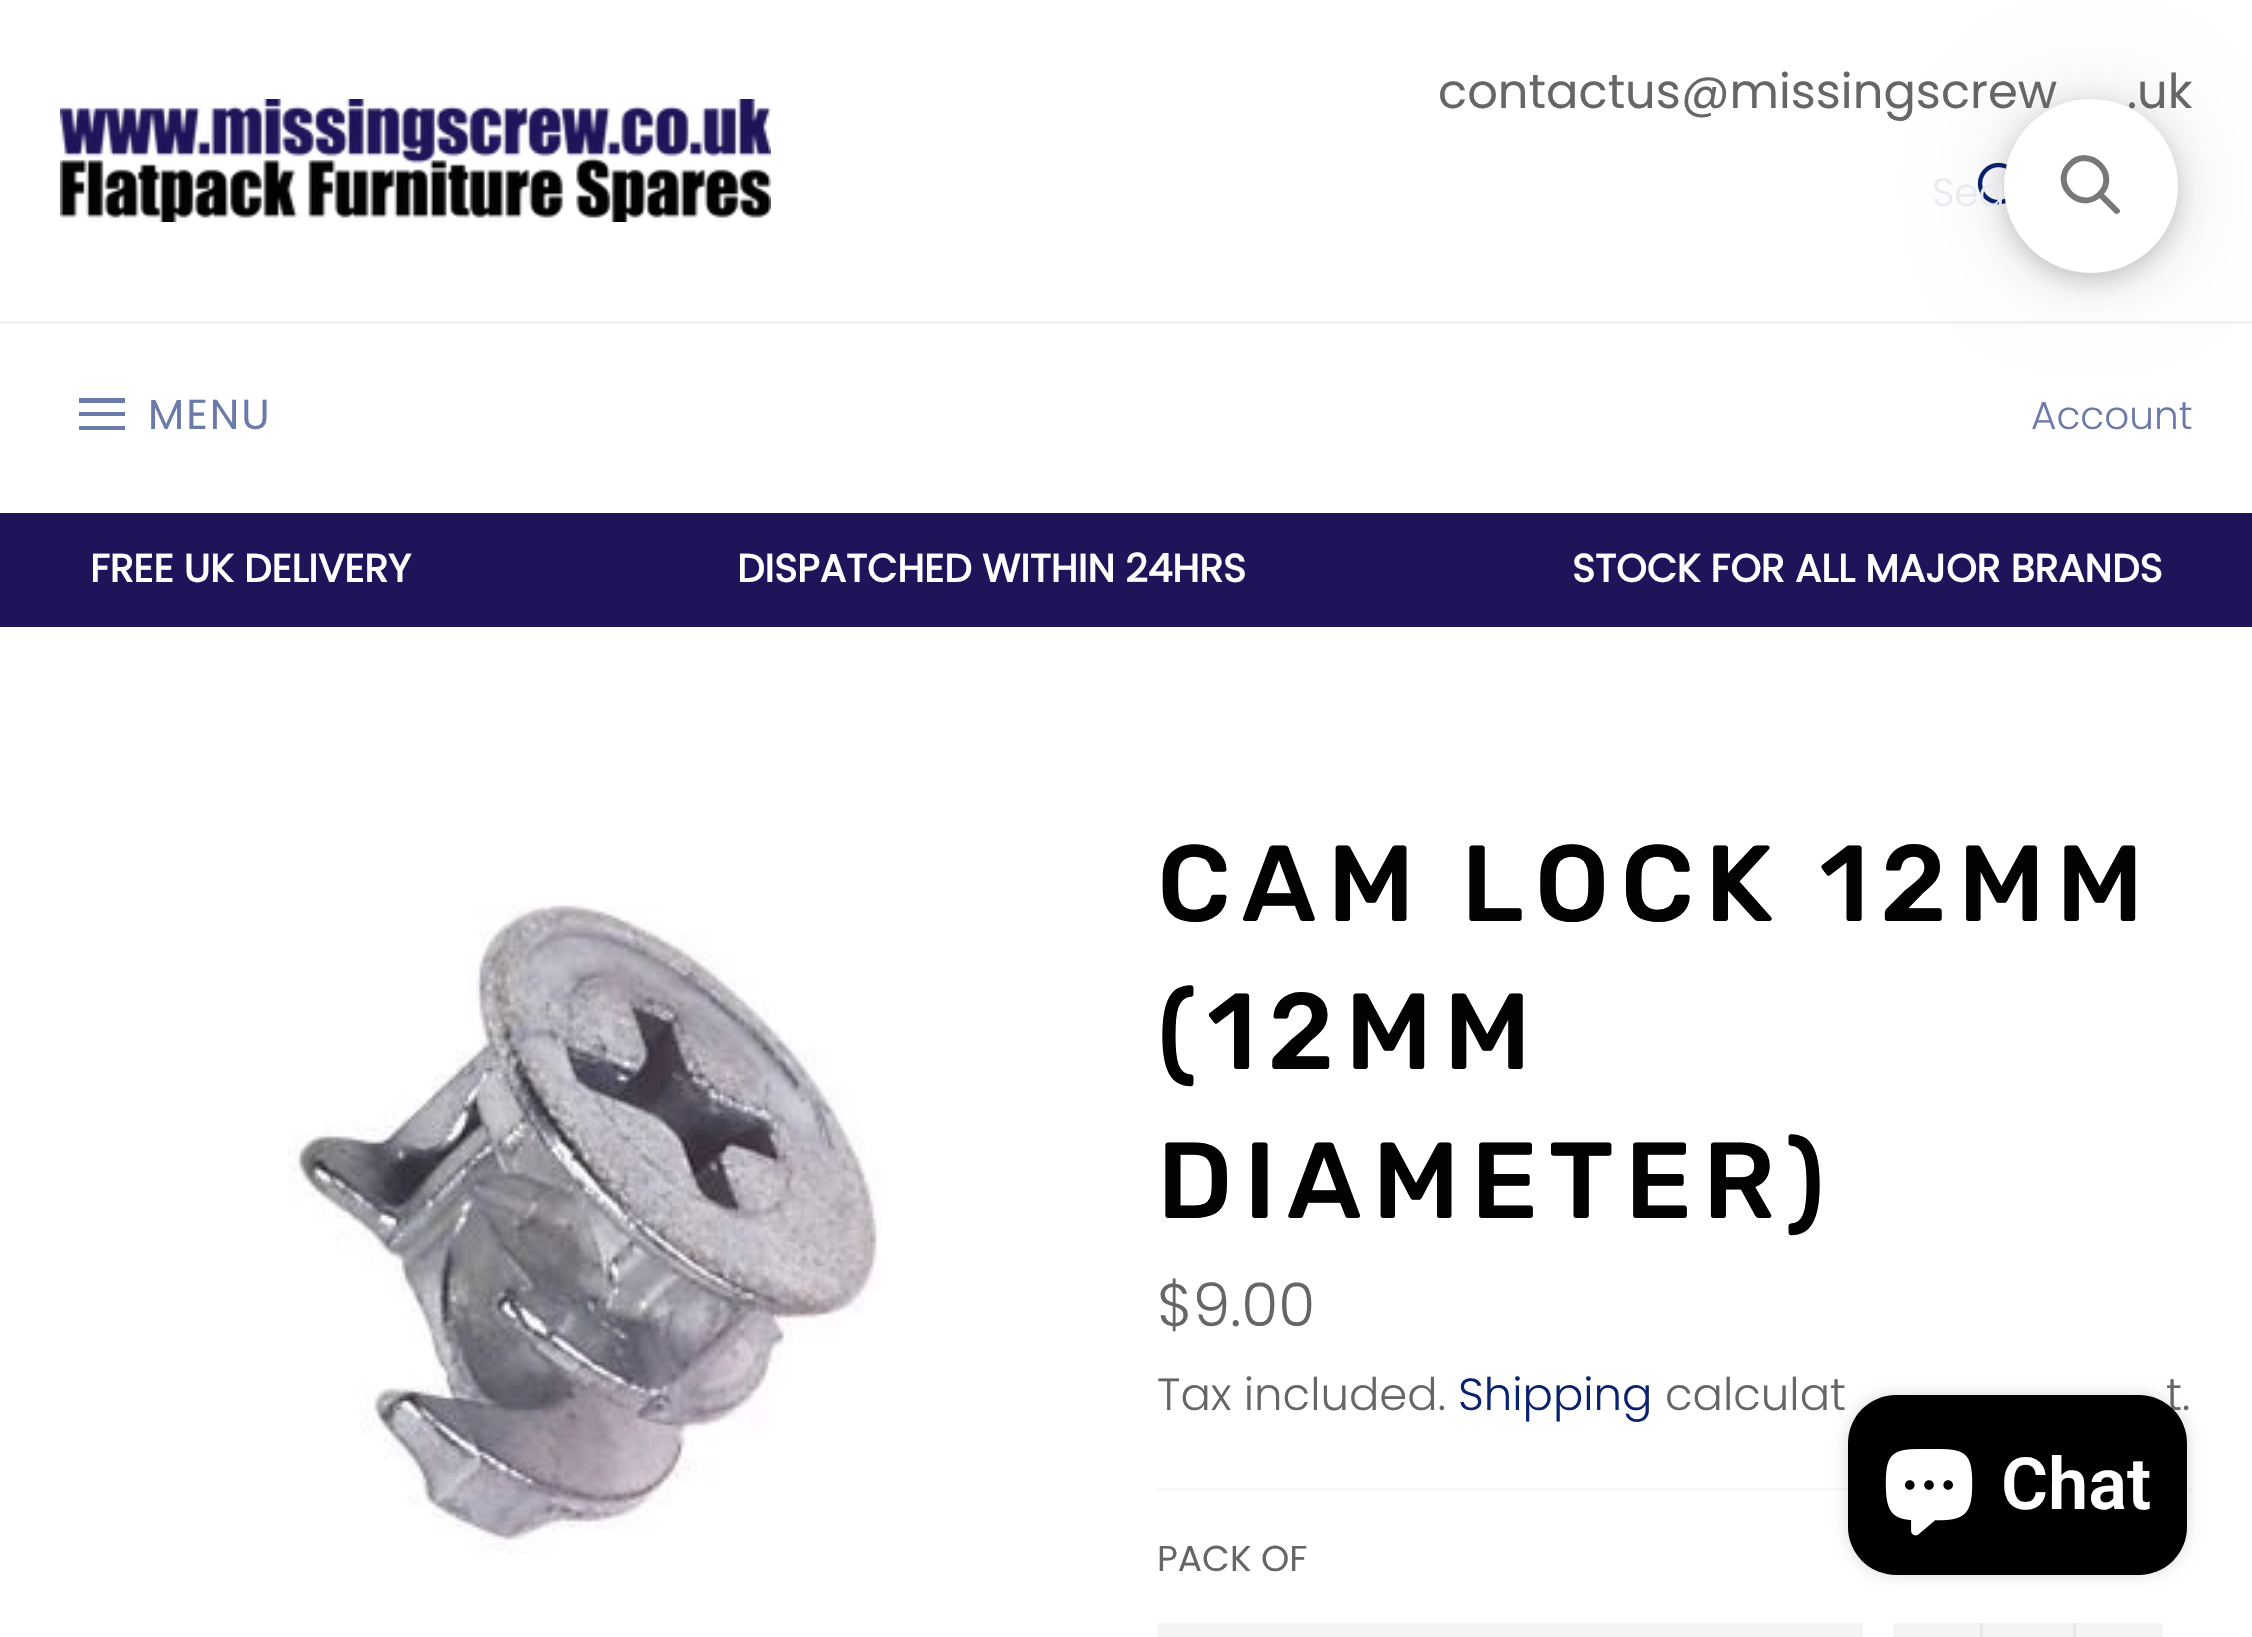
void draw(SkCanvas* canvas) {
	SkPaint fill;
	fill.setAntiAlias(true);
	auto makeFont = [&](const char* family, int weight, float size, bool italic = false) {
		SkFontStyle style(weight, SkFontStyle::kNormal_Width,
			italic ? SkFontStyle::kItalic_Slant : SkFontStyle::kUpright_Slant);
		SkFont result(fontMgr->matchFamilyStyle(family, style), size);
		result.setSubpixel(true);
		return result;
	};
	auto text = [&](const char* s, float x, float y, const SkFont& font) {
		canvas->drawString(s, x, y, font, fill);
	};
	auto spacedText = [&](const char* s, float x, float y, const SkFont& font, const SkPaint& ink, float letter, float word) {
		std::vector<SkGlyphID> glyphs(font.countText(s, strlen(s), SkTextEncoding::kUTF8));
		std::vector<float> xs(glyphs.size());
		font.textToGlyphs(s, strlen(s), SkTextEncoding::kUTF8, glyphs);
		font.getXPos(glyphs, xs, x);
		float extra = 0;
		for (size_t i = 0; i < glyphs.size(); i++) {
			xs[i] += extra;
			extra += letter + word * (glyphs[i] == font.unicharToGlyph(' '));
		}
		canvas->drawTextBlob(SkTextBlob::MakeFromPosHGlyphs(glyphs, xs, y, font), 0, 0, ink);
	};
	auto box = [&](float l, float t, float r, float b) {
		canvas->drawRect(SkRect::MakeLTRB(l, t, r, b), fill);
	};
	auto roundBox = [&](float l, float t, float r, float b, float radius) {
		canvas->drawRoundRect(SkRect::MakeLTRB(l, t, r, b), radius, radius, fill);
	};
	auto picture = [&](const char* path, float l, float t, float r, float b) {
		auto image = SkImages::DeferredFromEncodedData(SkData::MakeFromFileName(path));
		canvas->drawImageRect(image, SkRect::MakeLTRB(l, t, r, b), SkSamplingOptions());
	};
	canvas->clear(0xFFFFFFFF);
	picture("image1.png", 1977, 162, 2007, 205);
	fill.setColor(0xFFF2F2F2);
	box(0, 321, 2252, 324);
	fill.setColor(0x0D000000);
	fill.setMaskFilter(SkMaskFilter::MakeBlur(kNormal_SkBlurStyle, 12));
	canvas->drawRoundRect(SkRect::MakeLTRB(2004, 111, 2178, 285), 87, 87, fill);
	fill.setMaskFilter(nullptr);
	fill.setColor(0x26000000);
	fill.setMaskFilter(SkMaskFilter::MakeBlur(kNormal_SkBlurStyle, 12));
	canvas->drawRoundRect(SkRect::MakeLTRB(2004, 105, 2178, 279), 87, 87, fill);
	fill.setMaskFilter(nullptr);
	fill.setColor(0x1A000000);
	fill.setMaskFilter(SkMaskFilter::MakeBlur(kNormal_SkBlurStyle, 45));
	canvas->drawRoundRect(SkRect::MakeLTRB(2004, 99, 2178, 273), 87, 87, fill);
	fill.setMaskFilter(nullptr);
	picture("image0.png", 60, 99, 771, 222);
	fill.setColor(0xFF6C7AA9);
	canvas->drawPath(SkPathBuilder().moveTo(79, 412).lineTo(125, 412).lineTo(125, 416).lineTo(79, 416).close().moveTo(79, 398).lineTo(125, 398).lineTo(125, 403).lineTo(79, 403).close().moveTo(79, 426).lineTo(125, 426).lineTo(125, 430).lineTo(79, 430).close().detach(), fill);
	fill.setColor(0xFF1F1459);
	box(0, 513, 2252, 627);
	picture("image2.png", 288, 905, 882, 1554);
	fill.setColor(0xFFF7F7F7);
	box(1158, 1488, 2193, 1491);
	fill.setColor(0xFFF4F4F4);
	box(1158, 1623, 1863, 1637);
	box(1893, 1623, 2163, 1637);
	fill.setColor(0xFFE7E7E7);
	box(1980, 1623, 1983, 1637);
	box(2073, 1623, 2076, 1637);
	fill.setColor(0x26000000);
	fill.setMaskFilter(SkMaskFilter::MakeBlur(kNormal_SkBlurStyle, 7.5f));
	canvas->drawRoundRect(SkRect::MakeLTRB(1848, 1395, 2187, 1575), 48, 48, fill);
	fill.setMaskFilter(nullptr);
	auto font1 = makeFont("Poppins", 400, 48);
	fill.setColor(0xFF666666);
	text("contactus@missingscrew", 1438, 108, font1);
	text(".uk", 2127, 108, font1);
	fill.setColor(0xFFFFFFFF);
	canvas->drawCircle(2091, 186, 87, fill);
	fill.setStyle(SkPaint::kStroke_Style);
	fill.setStrokeWidth(6);
	fill.setColor(0xFF787878);
	canvas->drawPath(SkPathBuilder().moveTo(2070, 164.5f).cubicTo(2089.5f, 145, 2119.5f, 174.5f, 2100, 194).cubicTo(2080.5f, 213.5f, 2050.5f, 184, 2070, 164.5f).close().detach(), fill);
	fill.setStyle(SkPaint::kFill_Style);
	canvas->drawPath(SkPathBuilder().moveTo(2097.5f, 196).lineTo(2102, 192).lineTo(2119.5f, 209.5f).cubicTo(2121.5f, 212.5f, 2117, 215.5f, 2114.5f, 213).close().detach(), fill);
	auto font2 = makeFont("Poppins", 300, 39);
	fill.setColor(0xFFE8EAF1);
	text("Sea", 1932, 206, font2);
	auto font3 = makeFont("Poppins", 400, 42);
	fill.setColor(0xFF6C7AA9);
	spacedText("MENU", 148, 429, font3, fill, 2, 0);
	text("Account", 2031, 429, font2);
	auto font4 = makeFont("Poppins", 700, 39);
	fill.setColor(0xFFFFFFFF);
	text("FREE UK DELIVERY", 90, 582, font4);
	text("DISPATCHED WITHIN 24HRS", 737, 582, font4);
	text("STOCK FOR ALL MAJOR BRANDS", 1572, 582, font4);
	auto font5 = makeFont("Rubik", 500, 108);
	fill.setColor(0xFF030303);
	spacedText("CAM LOCK 12MM", 1157, 921, font5, fill, 10.75f, 0);
	spacedText("(12MM", 1157, 1069, font5, fill, 10.75f, 0);
	spacedText("DIAMETER)", 1157, 1218, font5, fill, 10.75f, 0);
	auto font6 = makeFont("Poppins", 300, 60);
	fill.setColor(0xFF666666);
	text("$9.00", 1157, 1326, font6);
	auto font7 = makeFont("Poppins", 300, 45);
	text("Tax included.", 1157, 1410, font7);
	fill.setColor(0xFF0A2270);
	text("Shipping", 1458, 1410, font7);
	fill.setColor(0xFF666666);
	text("calculat", 1665, 1410, font7);
	text("t.", 2166, 1410, font7);
	auto font8 = makeFont("Poppins", 400, 36);
	text("PACK OF", 1157, 1571, font8);
	fill.setColor(0xFF000000);
	roundBox(1848, 1395, 2187, 1575, 48);
	picture("image3.png", 1885, 1449, 1973, 1536);
	auto font9 = makeFont("Roboto", 600, 72);
	fill.setColor(0xFFFFFFFF);
	text("Chat", 2001, 1509, font9);
}
